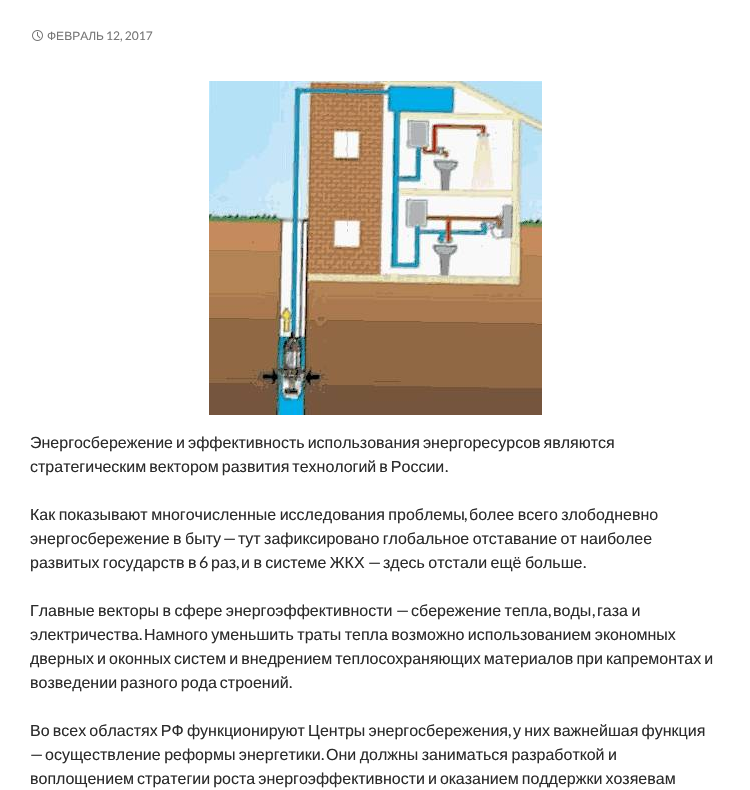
void draw(SkCanvas* canvas) {
	SkPaint fill;
	fill.setAntiAlias(true);
	auto makeFont = [&](const char* family, int weight, float size, bool italic = false) {
		SkFontStyle style(weight, SkFontStyle::kNormal_Width,
			italic ? SkFontStyle::kItalic_Slant : SkFontStyle::kUpright_Slant);
		SkFont result(fontMgr->matchFamilyStyle(family, style), size);
		result.setSubpixel(true);
		return result;
	};
	auto text = [&](const char* s, float x, float y, const SkFont& font) {
		canvas->drawString(s, x, y, font, fill);
	};
	auto spacedText = [&](const char* s, float x, float y, const SkFont& font, const SkPaint& ink, float letter, float word) {
		std::vector<SkGlyphID> glyphs(font.countText(s, strlen(s), SkTextEncoding::kUTF8));
		std::vector<float> xs(glyphs.size());
		font.textToGlyphs(s, strlen(s), SkTextEncoding::kUTF8, glyphs);
		font.getXPos(glyphs, xs, x);
		float extra = 0;
		for (size_t i = 0; i < glyphs.size(); i++) {
			xs[i] += extra;
			extra += letter + word * (glyphs[i] == font.unicharToGlyph(' '));
		}
		canvas->drawTextBlob(SkTextBlob::MakeFromPosHGlyphs(glyphs, xs, y, font), 0, 0, ink);
	};
	auto picture = [&](const char* path, float l, float t, float r, float b) {
		auto image = SkImages::DeferredFromEncodedData(SkData::MakeFromFileName(path));
		canvas->drawImageRect(image, SkRect::MakeLTRB(l, t, r, b), SkSamplingOptions());
	};
	canvas->clear(0xFFFFFFFF);
	picture("image0.png", 32, 30, 43, 41);
	picture("image1.png", 209, 81, 542, 415);
	auto font1 = makeFont("Liberation Sans", 400, 12);
	fill.setColor(0xFF767676);
	text("ФЕВРАЛЬ", 47, 40, font1);
	auto font2 = makeFont("Lato", 400, 12);
	text("12, 2017", 106, 40, font2);
	auto font3 = makeFont("Liberation Sans", 400, 16);
	fill.setColor(0xFF2B2B2B);
	spacedText("Энергосбережение и эффективность использования энергоресурсов являются", 30, 448, font3, fill, 0, -1.4f);
	spacedText("стратегическим вектором развития технологий в России", 30, 472, font3, fill, 0, -1.4f);
	auto font4 = makeFont("Lato", 400, 16);
	text(".", 445, 472, font4);
	spacedText("Как показывают многочисленные исследования проблемы", 30, 520, font3, fill, 0, -1);
	text(",", 464, 520, font4);
	spacedText("более всего злободневно", 469, 520, font3, fill, 0, -1);
	spacedText("энергосбережение в быту", 30, 544, font3, fill, 0, -1);
	text("—", 223, 544, font4);
	spacedText("тут зафиксировано глобальное отставание от наиболее", 238, 544, font3, fill, 0, -1);
	spacedText("развитых государств в", 30, 568, font3, fill, 0, -1);
	text("6", 199, 568, font4);
	text("раз", 211, 568, font3);
	spacedText("и в системе ЖКХ", 241, 568, font3, fill, 0, -1);
	text("—", 368, 568, font4);
	spacedText("здесь отстали ещё больше", 383, 568, font3, fill, 0, -1);
	text(",", 236, 568, font4);
	text(".", 583, 568, font4);
	spacedText("Главные векторы в сфере энергоэффективности", 30, 616, font3, fill, 0, -1);
	text("—", 396, 616, font4);
	spacedText("сбережение тепла", 411, 616, font3, fill, 0, -1);
	text("воды", 553, 616, font3);
	spacedText("газа и", 597, 616, font3, fill, 0, -1);
	text(",", 548, 616, font4);
	text(",", 592, 616, font4);
	text("электричества", 30, 640, font3);
	text(".", 139, 640, font4);
	spacedText("Намного уменьшить траты тепла возможно использованием экономных", 144, 640, font3, fill, 0, -1);
	spacedText("дверных и оконных систем и внедрением теплосохраняющих материалов при капремонтах и", 30, 664, font3, fill, 0, -1.4f);
	spacedText("возведении разного рода строений", 30, 688, font3, fill, 0, -1.4f);
	text(".", 289, 688, font4);
	spacedText("Во всех областях РФ функционируют Центры энергосбережения", 30, 736, font3, fill, 0, -1.25f);
	text(",", 508, 736, font4);
	spacedText("у них важнейшая функция", 513, 736, font3, fill, 0, -1.25f);
	text("—", 30, 760, font4);
	spacedText("осуществление реформы энергетики", 45, 760, font3, fill, 0, -1);
	spacedText("Они должны заниматься разработкой и", 326, 760, font3, fill, 0, -1);
	text(".", 321, 760, font4);
	spacedText("воплощением стратегии роста энергоэффективности и оказанием поддержки хозяевам", 30, 784, font3, fill, 0, -1.4f);
}
